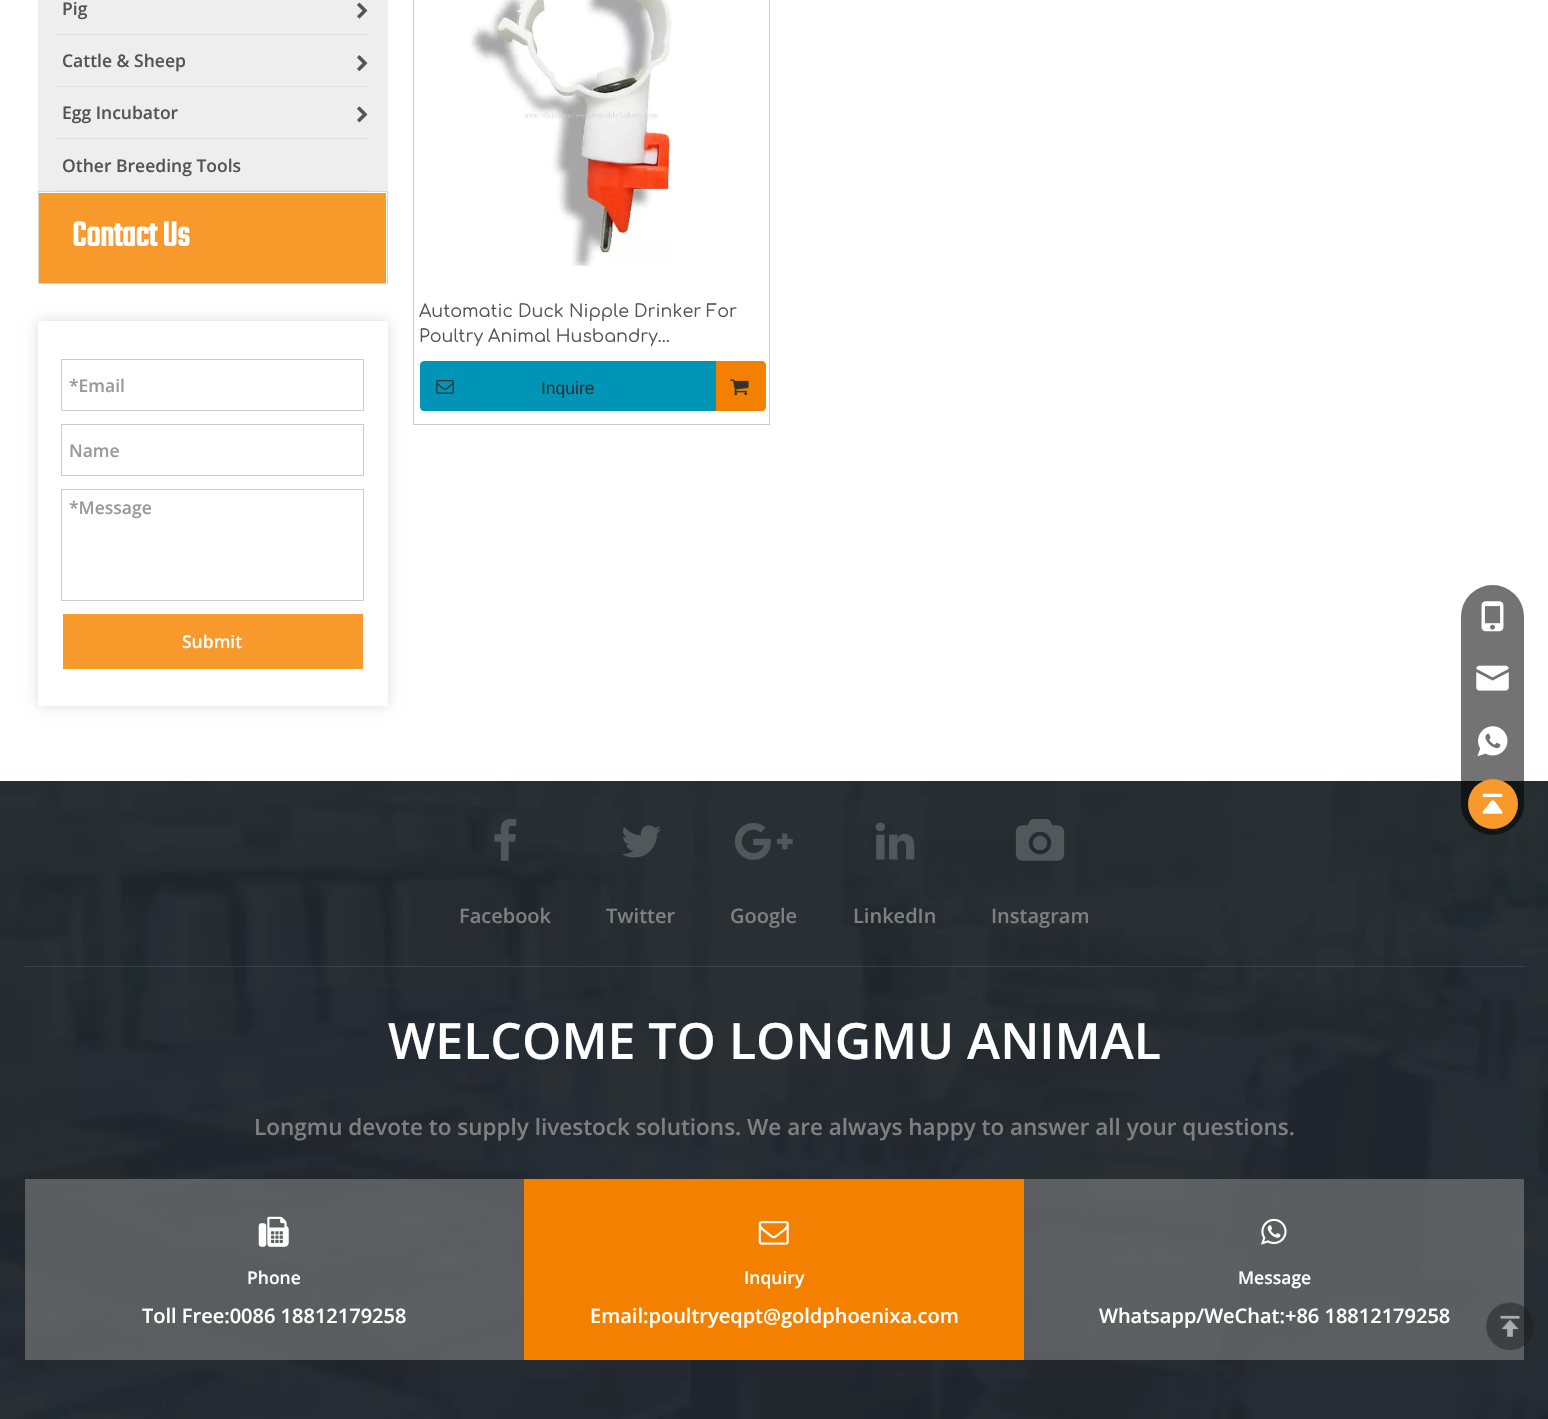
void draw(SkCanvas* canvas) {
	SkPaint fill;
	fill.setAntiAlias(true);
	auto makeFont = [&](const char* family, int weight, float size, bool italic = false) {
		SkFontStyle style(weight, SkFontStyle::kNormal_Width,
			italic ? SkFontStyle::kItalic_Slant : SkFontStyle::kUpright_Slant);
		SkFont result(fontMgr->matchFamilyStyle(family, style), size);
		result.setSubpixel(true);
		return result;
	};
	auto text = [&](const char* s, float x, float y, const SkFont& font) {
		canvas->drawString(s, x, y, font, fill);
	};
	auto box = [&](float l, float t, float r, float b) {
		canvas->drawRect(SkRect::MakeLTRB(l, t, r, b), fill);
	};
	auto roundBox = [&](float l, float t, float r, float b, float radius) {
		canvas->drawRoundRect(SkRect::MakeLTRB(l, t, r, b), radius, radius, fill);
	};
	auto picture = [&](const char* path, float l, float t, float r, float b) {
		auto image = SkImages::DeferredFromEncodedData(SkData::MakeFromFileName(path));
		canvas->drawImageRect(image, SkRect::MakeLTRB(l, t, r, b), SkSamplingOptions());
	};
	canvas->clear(0xFFFFFFFF);
	fill.setColor(0xFFEEEEEE);
	box(38, 0, 388, 191);
	picture("image0.png", 357, 2, 368, 19);
	fill.setColor(0xFFDFDFDF);
	box(56, 34, 369, 35);
	picture("image1.png", 357, 55, 368, 71);
	box(56, 86, 369, 87);
	picture("image2.png", 357, 106, 368, 123);
	box(56, 138, 369, 139);
	box(56, 190, 369, 191);
	fill.setStyle(SkPaint::kStroke_Style);
	fill.setStrokeWidth(1);
	fill.setColor(0xFFD6D6D6);
	canvas->drawRect(SkRect::MakeLTRB(38.5f, 191.5f, 387.5f, 283.5f), fill);
	fill.setStyle(SkPaint::kFill_Style);
	fill.setColor(0xFFF7992B);
	box(39, 193, 386, 283);
	canvas->save();
	canvas->clipPath(SkPathBuilder(SkPathFillType::kEvenOdd).moveTo(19, 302).lineTo(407, 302).lineTo(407, 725).lineTo(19, 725).close().moveTo(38, 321).lineTo(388, 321).lineTo(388, 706).lineTo(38, 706).close().detach(), true);
	fill.setColor(0x24000000);
	fill.setMaskFilter(SkMaskFilter::MakeBlur(kNormal_SkBlurStyle, 6));
	canvas->drawRect(SkRect::MakeLTRB(38, 321, 388, 706), fill);
	fill.setMaskFilter(nullptr);
	canvas->restore();
	fill.setStyle(SkPaint::kStroke_Style);
	fill.setColor(0xFFCCCCCC);
	canvas->drawRect(SkRect::MakeLTRB(61.5f, 359.5f, 363.5f, 410.5f), fill);
	canvas->drawRect(SkRect::MakeLTRB(61.5f, 424.5f, 363.5f, 475.5f), fill);
	canvas->drawRect(SkRect::MakeLTRB(61.5f, 489.5f, 363.5f, 600.5f), fill);
	fill.setStyle(SkPaint::kFill_Style);
	fill.setColor(0xFFF7992B);
	box(63, 614, 363, 669);
	fill.setStyle(SkPaint::kStroke_Style);
	fill.setColor(0xFFCCCCCC);
	canvas->drawRect(SkRect::MakeLTRB(413.5f, -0.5f, 769.5f, 424.5f), fill);
	picture("image3.png", 469, 0, 673, 266);
	fill.setStyle(SkPaint::kFill_Style);
	fill.setColor(0xFF0094B6);
	canvas->drawRoundRect(SkRect::MakeLTRB(420.5f, 361.5f, 764.5f, 410.5f), 3.5f, 3.5f, fill);
	fill.setStyle(SkPaint::kStroke_Style);
	canvas->drawRoundRect(SkRect::MakeLTRB(420.5f, 361.5f, 764.5f, 410.5f), 3.5f, 3.5f, fill);
	picture("image4.png", 436, 380, 454, 394);
	fill.setStyle(SkPaint::kFill_Style);
	fill.setColor(0xFFF48000);
	canvas->drawPath(SkPathBuilder().moveTo(715, 361).lineTo(762, 361).cubicTo(764, 361, 766, 363, 766, 365).lineTo(766, 407).cubicTo(766, 409, 764, 411, 762, 411).lineTo(715, 411).close().detach(), fill);
	fill.setColor(0xFF0094B6);
	box(715, 361, 716, 411);
	picture("image5.png", 730, 379, 749, 396);
	picture("image10.png", 0, 781, 1548, 1419);
	fill.setColor(0x8C000000);
	roundBox(1461, 585, 1524, 835, 31.5f);
	picture("image6.png", 1481, 601, 1504, 632);
	picture("image7.png", 1476, 665, 1509, 691);
	picture("image8.png", 1477, 726, 1508, 757);
	fill.setColor(0xFFF7992B);
	canvas->drawCircle(1493, 804, 25, fill);
	picture("image9.png", 1482, 793, 1503, 814);
	fill.setColor(0x1AFFFFFF);
	box(25, 966, 1525, 967);
	picture("image11.png", 494, 819, 517, 861);
	picture("image12.png", 622, 825, 661, 858);
	picture("image13.png", 734, 823, 793, 860);
	picture("image14.png", 875, 822, 915, 860);
	picture("image15.png", 1015, 819, 1065, 861);
	fill.setColor(0x99808080);
	box(25, 1179, 524, 1360);
	picture("image16.png", 258, 1216, 289, 1247);
	fill.setColor(0xFFF48000);
	box(524, 1179, 1024, 1360);
	picture("image17.png", 758, 1221, 789, 1245);
	fill.setColor(0x99808080);
	box(1024, 1179, 1524, 1360);
	picture("image18.png", 1261, 1218, 1287, 1245);
	picture("image19.png", 1486, 1302, 1534, 1350);
	auto font1 = makeFont("Open Sans", 600, 17.5f);
	fill.setColor(0xFF545454);
	text("Pig", 62, 15, font1);
	text("Cattle & Sheep", 62, 67, font1);
	text("Egg Incubator", 62, 119, font1);
	text("Other Breeding Tools", 62, 172, font1);
	auto font2 = makeFont("Teko", 700, 37.5f);
	fill.setColor(0xFFFFFFFF);
	text("Contact Us", 72, 246, font2);
	fill.setColor(0xFF999999);
	text("*Email", 69, 392, font1);
	text("Name", 69, 457, font1);
	text("*Message", 69, 514, font1);
	fill.setColor(0xFFFFFFFF);
	text("Submit", 182, 648, font1);
	auto font3 = makeFont("Comfortaa", 400, 17.5f);
	fill.setColor(0xFF545454);
	text("Automatic Duck Nipple Drinker For", 419, 317, font3);
	text("Poultry Animal Husbandry…", 419, 342, font3);
	auto font4 = makeFont("Liberation Sans", 400, 17.5f);
	fill.setColor(0xFF333333);
	text("Inquire", 541, 394, font4);
	auto font5 = makeFont("Open Sans", 600, 20);
	fill.setColor(0xFF808080);
	text("Facebook", 459, 923, font5);
	text("Twitter", 606, 923, font5);
	text("Google", 730, 923, font5);
	text("LinkedIn", 853, 923, font5);
	text("Instagram", 991, 923, font5);
	auto font6 = makeFont("Open Sans", 600, 50);
	fill.setColor(0xFFFFFFFF);
	text("WELCOME TO LONGMU ANIMAL", 388, 1059, font6);
	auto font7 = makeFont("Open Sans", 600, 22.5f);
	fill.setColor(0xFF808080);
	text("Longmu devote to supply livestock solutions. We are always happy to answer all your questions.", 254, 1135, font7);
	fill.setColor(0xFFFFFFFF);
	text("Phone", 247, 1284, font1);
	text("Toll Free:0086 18812179258", 142, 1323, font5);
	text("Inquiry", 744, 1284, font1);
	text("Email:poultryeqpt@goldphoenixa.com", 590, 1323, font5);
	text("Message", 1238, 1284, font1);
	text("Whatsapp/WeChat:+86 18812179258", 1099, 1323, font5);
}
